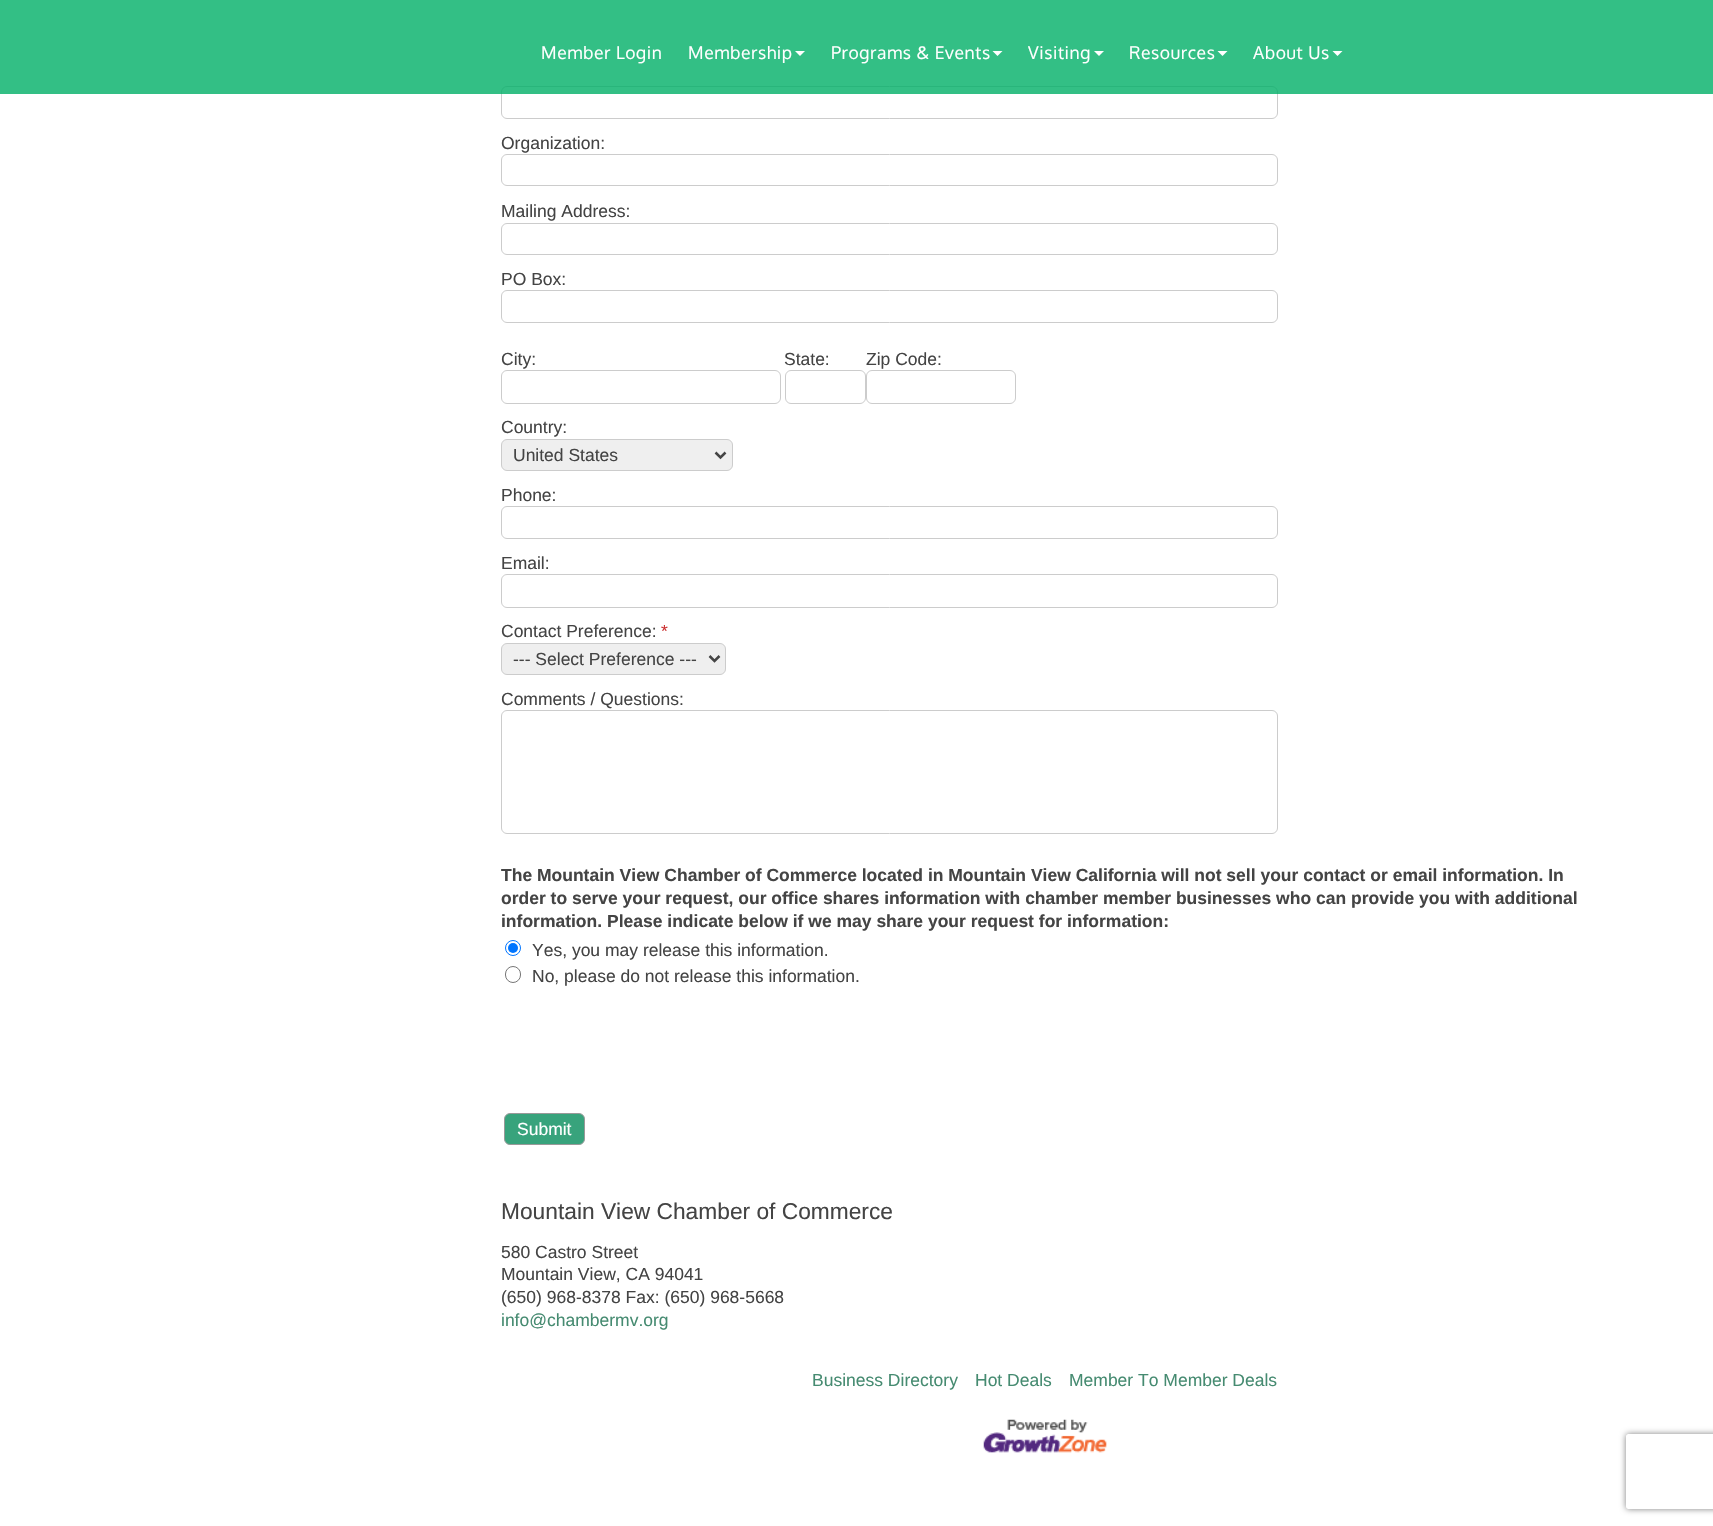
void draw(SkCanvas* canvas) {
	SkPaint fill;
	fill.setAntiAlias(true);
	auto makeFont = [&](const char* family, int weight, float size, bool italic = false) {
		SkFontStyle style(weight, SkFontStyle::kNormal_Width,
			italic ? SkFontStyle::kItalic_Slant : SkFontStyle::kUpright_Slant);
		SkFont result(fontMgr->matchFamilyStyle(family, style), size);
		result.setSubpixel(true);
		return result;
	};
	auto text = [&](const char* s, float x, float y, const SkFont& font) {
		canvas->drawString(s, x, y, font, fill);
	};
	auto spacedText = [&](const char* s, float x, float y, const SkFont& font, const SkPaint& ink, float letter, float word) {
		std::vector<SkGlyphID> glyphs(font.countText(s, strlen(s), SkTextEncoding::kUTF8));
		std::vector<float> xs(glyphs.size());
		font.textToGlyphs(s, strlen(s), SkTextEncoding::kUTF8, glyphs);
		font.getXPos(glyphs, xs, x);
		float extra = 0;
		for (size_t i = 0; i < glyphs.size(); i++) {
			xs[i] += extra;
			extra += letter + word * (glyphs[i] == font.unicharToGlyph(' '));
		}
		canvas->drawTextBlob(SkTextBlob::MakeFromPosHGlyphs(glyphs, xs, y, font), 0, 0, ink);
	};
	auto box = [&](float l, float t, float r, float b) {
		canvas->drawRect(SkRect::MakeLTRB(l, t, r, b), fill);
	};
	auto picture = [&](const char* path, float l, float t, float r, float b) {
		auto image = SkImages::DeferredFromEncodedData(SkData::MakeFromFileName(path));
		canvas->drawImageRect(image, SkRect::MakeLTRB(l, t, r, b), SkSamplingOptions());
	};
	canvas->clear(0xFFFFFFFF);
	fill.setStyle(SkPaint::kStroke_Style);
	fill.setStrokeWidth(1);
	fill.setColor(0xFFCCCCCC);
	canvas->drawRoundRect(SkRect::MakeLTRB(501.5f, 86.5f, 1277.5f, 118.5f), 5.5f, 5.5f, fill);
	fill.setStyle(SkPaint::kFill_Style);
	fill.setColor(0xCC00AF66);
	box(0, 0, 1713, 94);
	fill.setColor(0xFFFFFFFF);
	canvas->drawPath(SkPathBuilder().moveTo(795, 51).lineTo(805, 51).lineTo(800, 56).close().detach(), fill);
	canvas->drawPath(SkPathBuilder().moveTo(992.5f, 51).lineTo(1002.5f, 51).lineTo(997.5f, 56).close().detach(), fill);
	canvas->drawPath(SkPathBuilder().moveTo(1094, 51).lineTo(1104, 51).lineTo(1099, 56).close().detach(), fill);
	canvas->drawPath(SkPathBuilder().moveTo(1217.5f, 51).lineTo(1227.5f, 51).lineTo(1222.5f, 56).close().detach(), fill);
	canvas->drawPath(SkPathBuilder().moveTo(1332.5f, 51).lineTo(1342.5f, 51).lineTo(1337.5f, 56).close().detach(), fill);
	fill.setStyle(SkPaint::kStroke_Style);
	fill.setColor(0xFFCCCCCC);
	canvas->drawRoundRect(SkRect::MakeLTRB(501.5f, 154.5f, 1277.5f, 185.5f), 5.5f, 5.5f, fill);
	canvas->drawRoundRect(SkRect::MakeLTRB(501.5f, 223.5f, 1277.5f, 254.5f), 5.5f, 5.5f, fill);
	canvas->drawRoundRect(SkRect::MakeLTRB(501.5f, 290.5f, 1277.5f, 322.5f), 5.5f, 5.5f, fill);
	canvas->drawRoundRect(SkRect::MakeLTRB(501.5f, 370.5f, 780.5f, 403.5f), 5.5f, 5.5f, fill);
	canvas->drawRoundRect(SkRect::MakeLTRB(785.5f, 370.5f, 865.5f, 403.5f), 5.5f, 5.5f, fill);
	canvas->drawRoundRect(SkRect::MakeLTRB(866.5f, 370.5f, 1015.5f, 403.5f), 5.5f, 5.5f, fill);
	fill.setStyle(SkPaint::kFill_Style);
	fill.setColor(0xFFEFEFEF);
	canvas->drawRoundRect(SkRect::MakeLTRB(501.5f, 439.5f, 732.5f, 470.5f), 5.5f, 5.5f, fill);
	fill.setStyle(SkPaint::kStroke_Style);
	fill.setColor(0xFFCCCCCC);
	canvas->drawRoundRect(SkRect::MakeLTRB(501.5f, 439.5f, 732.5f, 470.5f), 5.5f, 5.5f, fill);
	fill.setStrokeWidth(2.5f);
	fill.setColor(0xFF444444);
	canvas->drawPath(SkPathBuilder().moveTo(715.5f, 452.5f).lineTo(720.5f, 457.5f).lineTo(725.5f, 452.5f).detach(), fill);
	fill.setStrokeWidth(1);
	fill.setColor(0xFFCCCCCC);
	canvas->drawRoundRect(SkRect::MakeLTRB(501.5f, 506.5f, 1277.5f, 538.5f), 5.5f, 5.5f, fill);
	canvas->drawRoundRect(SkRect::MakeLTRB(501.5f, 574.5f, 1277.5f, 607.5f), 5.5f, 5.5f, fill);
	fill.setStyle(SkPaint::kFill_Style);
	fill.setColor(0xFFEFEFEF);
	canvas->drawRoundRect(SkRect::MakeLTRB(501.5f, 643.5f, 725.5f, 674.5f), 5.5f, 5.5f, fill);
	fill.setStyle(SkPaint::kStroke_Style);
	fill.setColor(0xFFCCCCCC);
	canvas->drawRoundRect(SkRect::MakeLTRB(501.5f, 643.5f, 725.5f, 674.5f), 5.5f, 5.5f, fill);
	fill.setStrokeWidth(2.5f);
	fill.setColor(0xFF444444);
	canvas->drawPath(SkPathBuilder().moveTo(709.5f, 656).lineTo(714.5f, 661).lineTo(719.5f, 656).detach(), fill);
	fill.setStrokeWidth(1);
	fill.setColor(0xFFCCCCCC);
	canvas->drawRoundRect(SkRect::MakeLTRB(501.5f, 710.5f, 1277.5f, 833.5f), 5.5f, 5.5f, fill);
	fill.setColor(0xFF0075FF);
	canvas->drawCircle(513, 948, 7.5f, fill);
	fill.setStyle(SkPaint::kFill_Style);
	canvas->drawCircle(513, 948, 5, fill);
	fill.setStyle(SkPaint::kStroke_Style);
	fill.setColor(0xFF767676);
	canvas->drawRoundRect(SkRect::MakeLTRB(505.5f, 966.5f, 520.5f, 982.5f), 7.5f, 7.5f, fill);
	fill.setStyle(SkPaint::kFill_Style);
	fill.setColor(0xFF38A37C);
	canvas->drawRoundRect(SkRect::MakeLTRB(504.5f, 1113.5f, 584.5f, 1144.5f), 5.5f, 5.5f, fill);
	fill.setStyle(SkPaint::kStroke_Style);
	fill.setColor(0xFF999999);
	canvas->drawRoundRect(SkRect::MakeLTRB(504.5f, 1113.5f, 584.5f, 1144.5f), 5.5f, 5.5f, fill);
	picture("image0.png", 983, 1419, 1107, 1453);
	canvas->save();
	canvas->clipPath(SkPathBuilder(SkPathFillType::kEvenOdd).moveTo(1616, 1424).lineTo(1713, 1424).lineTo(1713, 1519).lineTo(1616, 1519).close().moveTo(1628.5f, 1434).lineTo(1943.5f, 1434).cubicTo(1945, 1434, 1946, 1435, 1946, 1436.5f).lineTo(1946, 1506.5f).cubicTo(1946, 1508, 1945, 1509, 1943.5f, 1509).lineTo(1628.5f, 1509).cubicTo(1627, 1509, 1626, 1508, 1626, 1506.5f).lineTo(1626, 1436.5f).cubicTo(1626, 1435, 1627, 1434, 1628.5f, 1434).close().detach(), true);
	fill.setStyle(SkPaint::kFill_Style);
	fill.setColor(0xFF808080);
	fill.setMaskFilter(SkMaskFilter::MakeBlur(kNormal_SkBlurStyle, 3));
	canvas->drawRoundRect(SkRect::MakeLTRB(1626, 1434, 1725, 1509), 2.5f, 2.5f, fill);
	fill.setMaskFilter(nullptr);
	canvas->restore();
	auto font1 = makeFont("Oxygen", 400, 17.5f);
	fill.setColor(0xFFFFFFFF);
	spacedText("Member Login", 541, 59, font1, fill, 0.6f, 0);
	spacedText("Membership", 688, 59, font1, fill, 0.6f, 0);
	spacedText("Programs & Events", 831, 59, font1, fill, 0.6f, 0);
	spacedText("Visiting", 1028, 59, font1, fill, 0.6f, 0);
	spacedText("Resources", 1129, 59, font1, fill, 0.6f, 0);
	spacedText("About Us", 1253, 59, font1, fill, 0.6f, 0);
	auto font2 = makeFont("Liberation Sans", 400, 17.5f);
	fill.setColor(0xFF444444);
	text("Organization:", 501, 149, font2);
	text("Mailing Address:", 501, 217, font2);
	text("PO Box:", 501, 285, font2);
	text("City:", 501, 365, font2);
	text("State:", 784, 365, font2);
	text("Zip Code:", 866, 365, font2);
	text("Country:", 501, 433, font2);
	text("United States", 513, 461, font2);
	text("Phone:", 501, 501, font2);
	text("Email:", 501, 569, font2);
	text("Contact Preference:", 501, 637, font2);
	fill.setColor(0xFFCC3333);
	text("*", 661, 637, font2);
	fill.setColor(0xFF444444);
	text("--- Select Preference ---", 513, 665, font2);
	text("Comments / Questions:", 501, 705, font2);
	auto font3 = makeFont("Liberation Sans", 700, 17.5f);
	text("The Mountain View Chamber of Commerce located in Mountain View California will not sell your contact or email information. In", 501, 881, font3);
	text("order to serve your request, our office shares information with chamber member businesses who can provide you with additional", 501, 904, font3);
	text("information. Please indicate below if we may share your request for information:", 501, 927, font3);
	text("Yes, you may release this information.", 532, 956, font2);
	text("No, please do not release this information.", 532, 982, font2);
	fill.setColor(0xFFFFFFFF);
	text("Submit", 517, 1135, font2);
	auto font4 = makeFont("Liberation Sans", 400, 22.75f);
	fill.setColor(0xFF444444);
	text("Mountain View Chamber of Commerce", 501, 1219, font4);
	text("580 Castro Street", 501, 1258, font2);
	text("Mountain View, CA 94041", 501, 1280, font2);
	text("(650) 968-8378 Fax: (650) 968-5668", 501, 1303, font2);
	fill.setColor(0xFF468B71);
	text("info@chambermv.org", 501, 1326, font2);
	text("Business Directory", 812, 1386, font2);
	text("Hot Deals", 975, 1386, font2);
	text("Member To Member Deals", 1069, 1386, font2);
}
